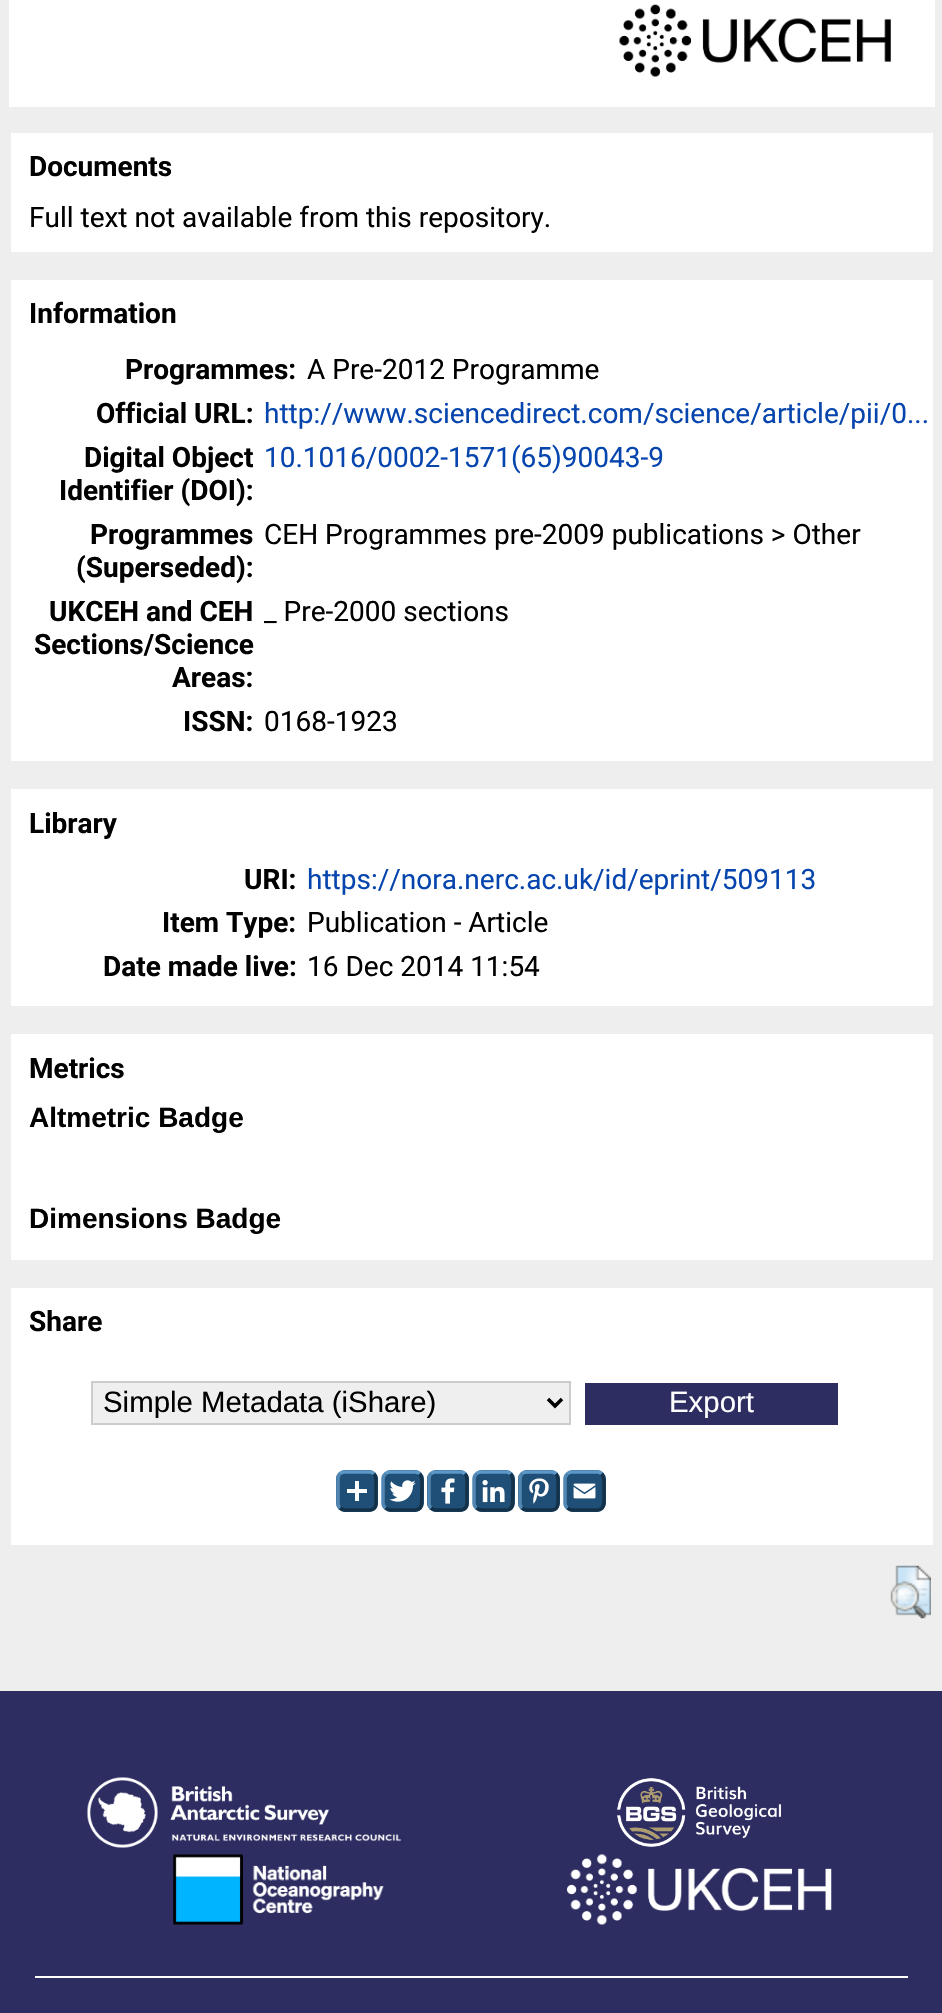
void draw(SkCanvas* canvas) {
	SkPaint fill;
	fill.setAntiAlias(true);
	auto makeFont = [&](const char* family, int weight, float size, bool italic = false) {
		SkFontStyle style(weight, SkFontStyle::kNormal_Width,
			italic ? SkFontStyle::kItalic_Slant : SkFontStyle::kUpright_Slant);
		SkFont result(fontMgr->matchFamilyStyle(family, style), size);
		result.setSubpixel(true);
		return result;
	};
	auto text = [&](const char* s, float x, float y, const SkFont& font) {
		canvas->drawString(s, x, y, font, fill);
	};
	auto box = [&](float l, float t, float r, float b) {
		canvas->drawRect(SkRect::MakeLTRB(l, t, r, b), fill);
	};
	auto roundBox = [&](float l, float t, float r, float b, float radius) {
		canvas->drawRoundRect(SkRect::MakeLTRB(l, t, r, b), radius, radius, fill);
	};
	auto picture = [&](const char* path, float l, float t, float r, float b) {
		auto image = SkImages::DeferredFromEncodedData(SkData::MakeFromFileName(path));
		canvas->drawImageRect(image, SkRect::MakeLTRB(l, t, r, b), SkSamplingOptions());
	};
	canvas->clear(0xFFEEEEEE);
	fill.setColor(0xFFFFFFFF);
	box(9, 0, 935, 107);
	picture("image0.png", 619, 4, 891, 77);
	box(11, 133, 933, 252);
	box(11, 280, 933, 761);
	box(11, 789, 933, 1006);
	box(11, 1034, 933, 1260);
	box(11, 1288, 933, 1545);
	fill.setColor(0xFFEFEFEF);
	canvas->drawRect(SkRect::MakeLTRB(92, 1382, 570, 1424), fill);
	fill.setStyle(SkPaint::kStroke_Style);
	fill.setStrokeWidth(2);
	fill.setColor(0xFFCCCCCC);
	canvas->drawRect(SkRect::MakeLTRB(92, 1382, 570, 1424), fill);
	fill.setStrokeWidth(3.5f);
	fill.setColor(0xFF000000);
	canvas->drawPath(SkPathBuilder().moveTo(548, 1399).lineTo(555, 1406).lineTo(562, 1399).detach(), fill);
	fill.setStyle(SkPaint::kFill_Style);
	fill.setColor(0xFF2E2D62);
	box(585, 1383, 838, 1425);
	fill.setColor(0xFF1F4F76);
	roundBox(336, 1470, 378, 1512, 9);
	fill.setStyle(SkPaint::kStroke_Style);
	fill.setColor(0xFF5B97C7);
	canvas->drawPath(SkPathBuilder().moveTo(340, 1474).cubicTo(341, 1472.5f, 343, 1472, 345, 1472).lineTo(369, 1472).cubicTo(371, 1472, 373, 1472.5f, 374, 1474).detach(), fill);
	fill.setStyle(SkPaint::kFill_Style);
	fill.setColor(0xFF1F4F76);
	roundBox(382, 1470, 424, 1512, 9);
	fill.setStyle(SkPaint::kStroke_Style);
	fill.setColor(0xFF5B97C7);
	canvas->drawPath(SkPathBuilder().moveTo(385.5f, 1474).cubicTo(386.5f, 1472.5f, 388.5f, 1472, 390, 1472).lineTo(415, 1472).cubicTo(416.5f, 1472, 418.5f, 1472.5f, 419.5f, 1474).detach(), fill);
	fill.setStyle(SkPaint::kFill_Style);
	fill.setColor(0xFF1F4F76);
	roundBox(427, 1470, 469, 1512, 9);
	fill.setStyle(SkPaint::kStroke_Style);
	fill.setColor(0xFF5B97C7);
	canvas->drawPath(SkPathBuilder().moveTo(431, 1474).cubicTo(432, 1472.5f, 434, 1472, 436, 1472).lineTo(460, 1472).cubicTo(462, 1472, 464, 1472.5f, 465, 1474).detach(), fill);
	fill.setStyle(SkPaint::kFill_Style);
	fill.setColor(0xFF1F4F76);
	roundBox(473, 1470, 515, 1512, 9);
	fill.setStyle(SkPaint::kStroke_Style);
	fill.setColor(0xFF5B97C7);
	canvas->drawPath(SkPathBuilder().moveTo(476.5f, 1474).cubicTo(477.5f, 1472.5f, 479.5f, 1472, 481, 1472).lineTo(506, 1472).cubicTo(507.5f, 1472, 509.5f, 1472.5f, 510.5f, 1474).detach(), fill);
	fill.setStyle(SkPaint::kFill_Style);
	fill.setColor(0xFF1F4F76);
	roundBox(518, 1470, 560, 1512, 9);
	fill.setStyle(SkPaint::kStroke_Style);
	fill.setColor(0xFF5B97C7);
	canvas->drawPath(SkPathBuilder().moveTo(522, 1474).cubicTo(523, 1472.5f, 525, 1472, 527, 1472).lineTo(551, 1472).cubicTo(553, 1472, 555, 1472.5f, 556, 1474).detach(), fill);
	fill.setStyle(SkPaint::kFill_Style);
	fill.setColor(0xFF1F4F76);
	roundBox(564, 1470, 606, 1512, 9);
	fill.setStyle(SkPaint::kStroke_Style);
	fill.setColor(0xFF13324A);
	canvas->drawPath(SkPathBuilder().moveTo(374, 1474).cubicTo(376.5f, 1476.5f, 376, 1479.5f, 376, 1483).lineTo(376, 1504).cubicTo(375.5f, 1510.5f, 370, 1510, 365, 1510).lineTo(349, 1510).cubicTo(345.5f, 1510, 342.5f, 1510.5f, 340, 1508).detach(), fill);
	fill.setColor(0xFF5287B3);
	canvas->drawPath(SkPathBuilder().moveTo(340, 1508).cubicTo(338.5f, 1507, 338, 1505, 338, 1503).lineTo(338, 1479).cubicTo(338, 1477, 338.5f, 1475, 340, 1474).detach(), fill);
	fill.setColor(0xFF5B97C7);
	canvas->drawPath(SkPathBuilder().moveTo(567.5f, 1474).cubicTo(568.5f, 1472.5f, 570.5f, 1472, 572, 1472).lineTo(597, 1472).cubicTo(598.5f, 1472, 600.5f, 1472.5f, 601.5f, 1474).detach(), fill);
	fill.setColor(0xFF13324A);
	canvas->drawPath(SkPathBuilder().moveTo(419.5f, 1474).cubicTo(422, 1476.5f, 422, 1479.5f, 422, 1483).lineTo(421.5f, 1504).cubicTo(421, 1510.5f, 415.5f, 1510, 410.5f, 1510).lineTo(394.5f, 1510).cubicTo(391, 1510, 388, 1510.5f, 385.5f, 1508).detach(), fill);
	fill.setColor(0xFF5287B3);
	canvas->drawPath(SkPathBuilder().moveTo(385.5f, 1508).cubicTo(384, 1507, 383, 1505, 383, 1503).lineTo(383, 1479).cubicTo(383, 1477, 384, 1475, 385.5f, 1474).detach(), fill);
	fill.setColor(0xFF13324A);
	canvas->drawPath(SkPathBuilder().moveTo(465, 1474).cubicTo(467.5f, 1476.5f, 467, 1479.5f, 467, 1483).lineTo(467, 1504).cubicTo(466.5f, 1510.5f, 461, 1510, 456, 1510).lineTo(440, 1510).cubicTo(436.5f, 1510, 433.5f, 1510.5f, 431, 1508).detach(), fill);
	fill.setColor(0xFF5287B3);
	canvas->drawPath(SkPathBuilder().moveTo(431, 1508).cubicTo(429.5f, 1507, 429, 1505, 429, 1503).lineTo(429, 1479).cubicTo(429, 1477, 429.5f, 1475, 431, 1474).detach(), fill);
	fill.setColor(0xFF13324A);
	canvas->drawPath(SkPathBuilder().moveTo(510.5f, 1474).cubicTo(513, 1476.5f, 513, 1479.5f, 513, 1483).lineTo(512.5f, 1504).cubicTo(512, 1510.5f, 506.5f, 1510, 501.5f, 1510).lineTo(485.5f, 1510).cubicTo(482, 1510, 479, 1510.5f, 476.5f, 1508).detach(), fill);
	fill.setColor(0xFF5287B3);
	canvas->drawPath(SkPathBuilder().moveTo(476.5f, 1508).cubicTo(475, 1507, 474, 1505, 474, 1503).lineTo(474, 1479).cubicTo(474, 1477, 475, 1475, 476.5f, 1474).detach(), fill);
	fill.setColor(0xFF13324A);
	canvas->drawPath(SkPathBuilder().moveTo(556, 1474).cubicTo(558.5f, 1476.5f, 558, 1479.5f, 558, 1483).lineTo(558, 1499).cubicTo(558, 1504, 558.5f, 1509.5f, 552, 1510).lineTo(531, 1510).cubicTo(527.5f, 1510, 524.5f, 1510.5f, 522, 1508).detach(), fill);
	fill.setColor(0xFF5287B3);
	canvas->drawPath(SkPathBuilder().moveTo(522, 1508).cubicTo(520.5f, 1507, 520, 1505, 520, 1503).lineTo(520, 1479).cubicTo(520, 1477, 520.5f, 1475, 522, 1474).detach(), fill);
	fill.setColor(0xFF13324A);
	canvas->drawPath(SkPathBuilder().moveTo(601.5f, 1474).cubicTo(604, 1476.5f, 604, 1479.5f, 604, 1483).lineTo(604, 1499).cubicTo(604, 1504, 604, 1509.5f, 597.5f, 1510).lineTo(576.5f, 1510).cubicTo(573, 1510, 570, 1510.5f, 567.5f, 1508).detach(), fill);
	fill.setColor(0xFF5287B3);
	canvas->drawPath(SkPathBuilder().moveTo(567.5f, 1508).cubicTo(566, 1507, 565, 1505, 565, 1503).lineTo(565, 1479).cubicTo(565, 1477, 566, 1475, 567.5f, 1474).detach(), fill);
	fill.setStyle(SkPaint::kFill_Style);
	fill.setColor(0xFFFFFFFF);
	box(355, 1481, 359, 1501);
	picture("image1.png", 389, 1480, 416, 1502);
	picture("image2.png", 441, 1478, 455, 1504);
	picture("image3.png", 482, 1480, 505, 1503);
	picture("image4.png", 529, 1478, 549, 1504);
	box(347, 1489, 367, 1493);
	picture("image5.png", 573, 1483, 596, 1499);
	picture("image6.png", 890, 1565, 931, 1619);
	fill.setColor(0xFF2E2D62);
	box(0, 1691, 942, 2013);
	picture("image7.png", 87, 1777, 401, 1848);
	picture("image8.png", 617, 1778, 781, 1847);
	picture("image9.png", 173, 1854, 384, 1925);
	picture("image10.png", 567, 1854, 832, 1925);
	fill.setColor(0xFFFFFFFF);
	box(35, 1976, 908, 1978);
	auto font1 = makeFont("Roboto", 700, 28);
	fill.setColor(0xFF000000);
	text("Documents", 29, 176, font1);
	auto font2 = makeFont("Roboto", 400, 28);
	text("Full text not available from this repository.", 29, 227, font2);
	text("Information", 29, 323, font1);
	text("Programmes:", 125, 379, font1);
	text("A Pre-2012 Programme", 307, 379, font2);
	text("Official URL:", 96, 423, font1);
	fill.setColor(0xFF0645AD);
	text("http://www.sciencedirect.com/science/article/pii/0...", 264, 423, font2);
	fill.setColor(0xFF000000);
	text("Digital Object", 84, 467, font1);
	text("Identifier (DOI):", 59, 500, font1);
	fill.setColor(0xFF0645AD);
	text("10.1016/0002-1571(65)90043-9", 264, 467, font2);
	fill.setColor(0xFF000000);
	text("Programmes", 90, 544, font1);
	text("(Superseded):", 76, 577, font1);
	text("CEH Programmes pre-2009 publications > Other", 264, 544, font2);
	text("UKCEH and CEH", 49, 621, font1);
	text("Sections/Science", 34, 654, font1);
	text("Areas:", 172, 687, font1);
	text("_ Pre-2000 sections", 264, 621, font2);
	text("ISSN:", 183, 731, font1);
	text("0168-1923", 264, 731, font2);
	text("Library", 29, 833, font1);
	text("URI:", 244, 889, font1);
	fill.setColor(0xFF0645AD);
	text("https://nora.nerc.ac.uk/id/eprint/509113", 307, 889, font2);
	fill.setColor(0xFF000000);
	text("Item Type:", 162, 932, font1);
	text("Publication - Article", 307, 932, font2);
	text("Date made live:", 103, 976, font1);
	text("16 Dec 2014 11:54", 307, 976, font2);
	text("Metrics", 29, 1078, font1);
	auto font3 = makeFont("Liberation Sans", 700, 28);
	text("Altmetric Badge", 29, 1127, font3);
	text("Dimensions Badge", 29, 1228, font3);
	text("Share", 29, 1331, font1);
	auto font4 = makeFont("Liberation Sans", 400, 29.4f);
	text("Simple Metadata (iShare)", 103, 1412, font4);
	fill.setColor(0xFFFFFFFF);
	text("Export", 669, 1412, font4);
}
